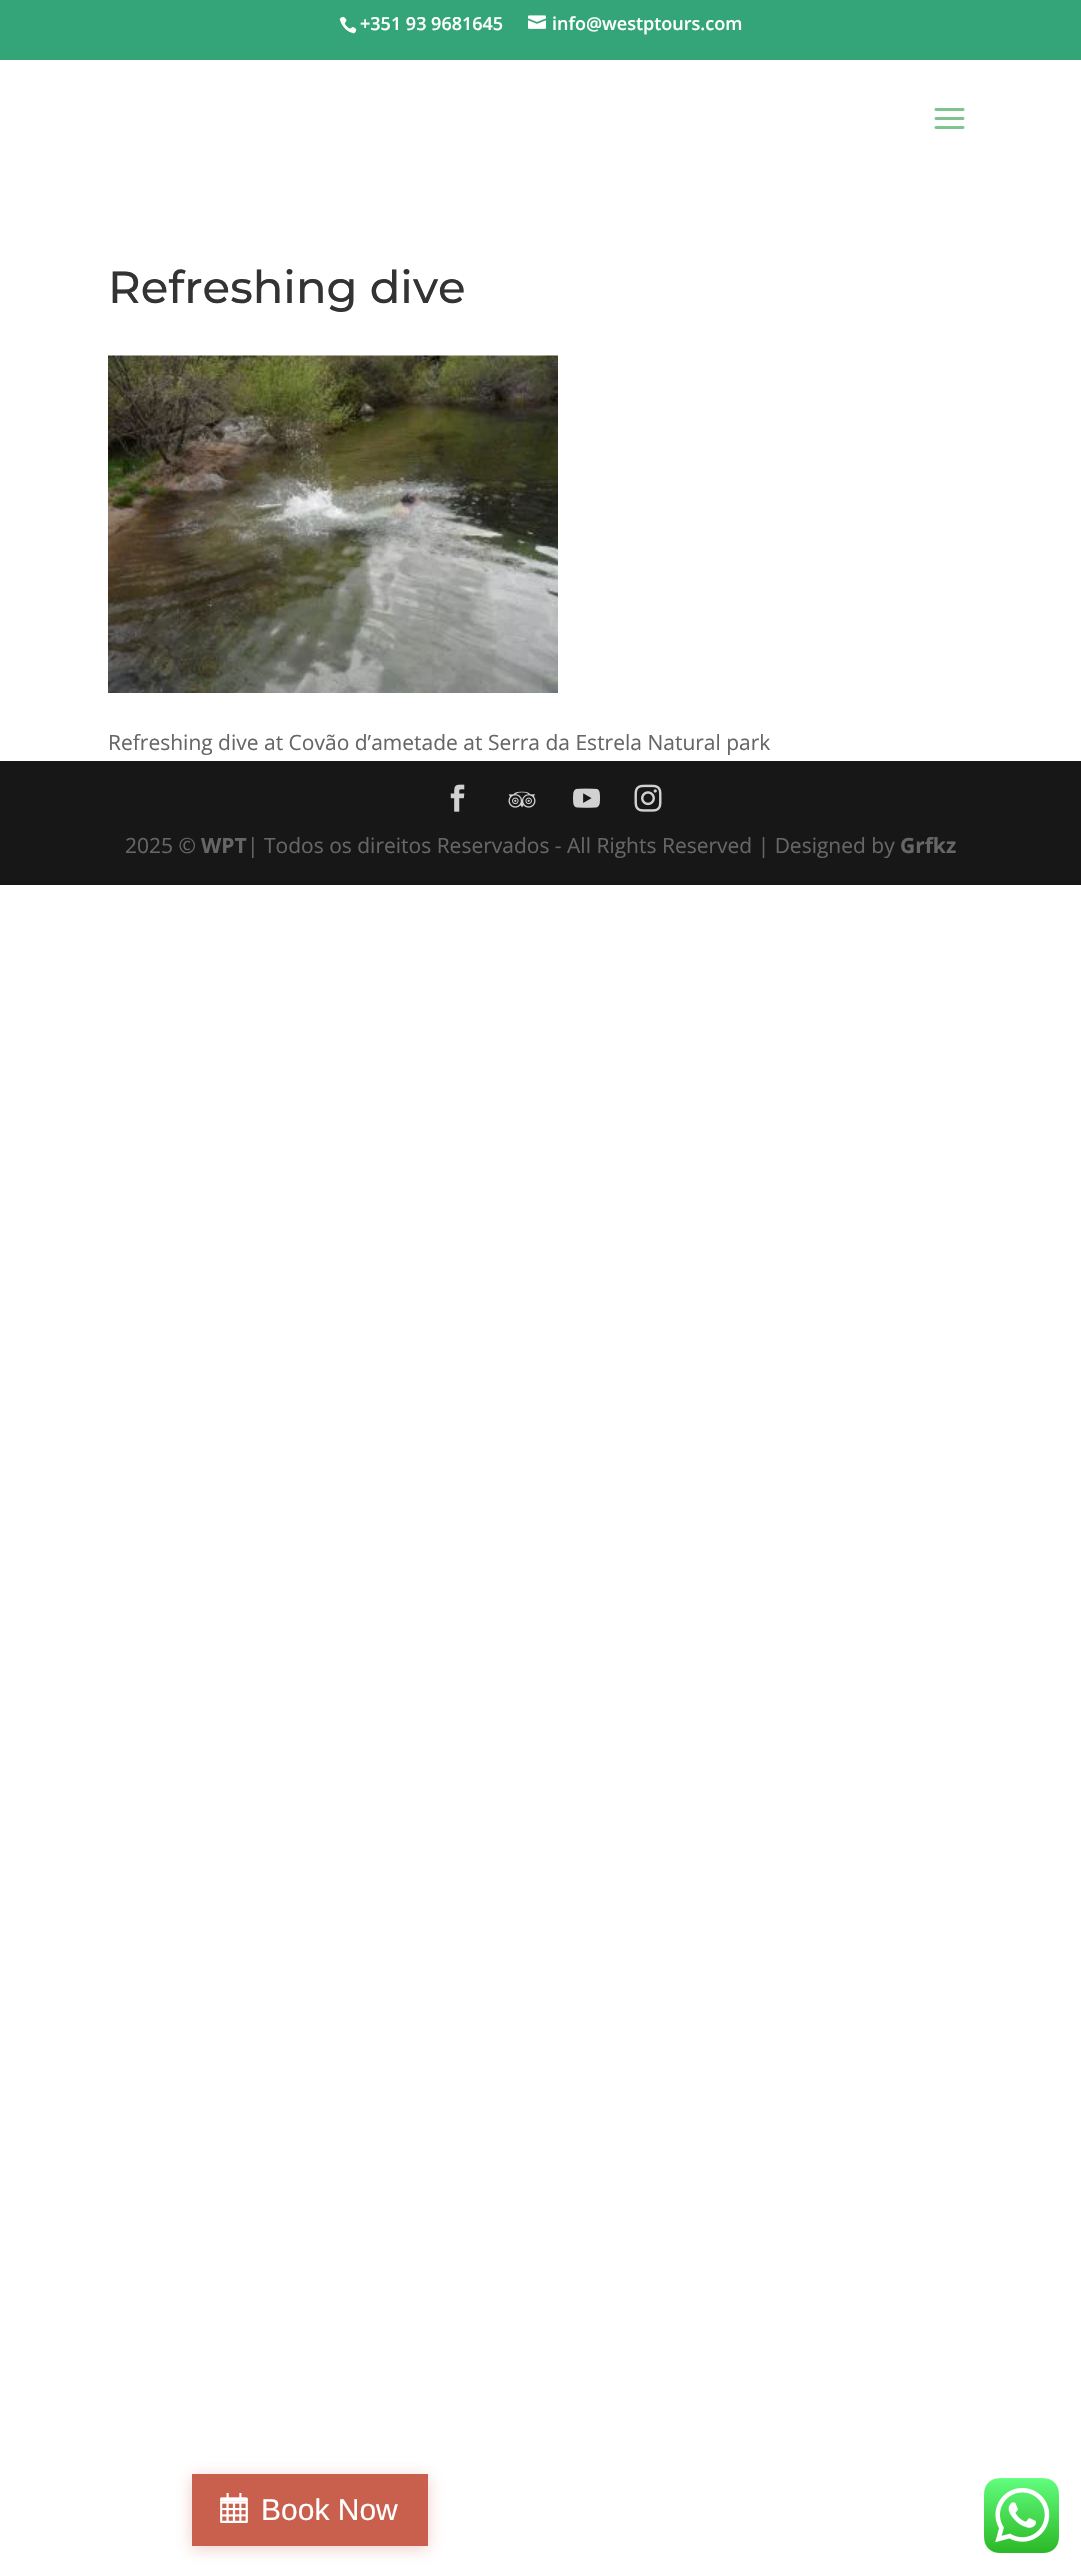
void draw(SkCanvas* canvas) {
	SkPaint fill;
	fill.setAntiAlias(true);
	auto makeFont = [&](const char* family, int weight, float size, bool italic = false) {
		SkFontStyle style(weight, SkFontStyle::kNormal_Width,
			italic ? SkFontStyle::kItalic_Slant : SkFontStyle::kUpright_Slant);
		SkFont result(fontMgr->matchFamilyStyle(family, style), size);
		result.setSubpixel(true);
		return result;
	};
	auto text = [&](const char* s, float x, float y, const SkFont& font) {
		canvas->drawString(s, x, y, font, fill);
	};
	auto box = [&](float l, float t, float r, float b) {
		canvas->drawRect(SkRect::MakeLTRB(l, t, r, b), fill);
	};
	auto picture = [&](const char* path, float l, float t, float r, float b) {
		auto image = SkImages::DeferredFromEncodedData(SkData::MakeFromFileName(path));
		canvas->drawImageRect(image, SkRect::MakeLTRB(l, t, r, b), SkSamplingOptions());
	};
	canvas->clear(0xFFFFFFFF);
	fill.setColor(0xFF33A578);
	box(0, 0, 1081, 60);
	picture("image0.png", 339, 16, 357, 34);
	picture("image1.png", 528, 15, 546, 29);
	picture("image2.png", 934, 108, 965, 129);
	picture("image3.png", 108, 355, 558, 693);
	fill.setColor(0xFF171717);
	box(0, 761, 1081, 885);
	picture("image4.png", 450, 784, 465, 812);
	picture("image5.png", 508, 791, 536, 808);
	picture("image6.png", 573, 788, 600, 808);
	picture("image7.png", 634, 784, 662, 812);
	fill.setColor(0x4DC9604D);
	fill.setMaskFilter(SkMaskFilter::MakeBlur(kNormal_SkBlurStyle, 7.5f));
	canvas->drawRect(SkRect::MakeLTRB(192, 2477, 428, 2549), fill);
	fill.setMaskFilter(nullptr);
	fill.setColor(0xFFC9604D);
	box(192, 2474, 428, 2546);
	picture("image8.png", 220, 2493, 248, 2523);
	picture("image9.png", 984, 2478, 1059, 2553);
	auto font1 = makeFont("Open Sans", 600, 18);
	fill.setColor(0xFFFFFFFF);
	text("+351 93 9681645", 360, 30, font1);
	text("info@westptours.com", 552, 30, font1);
	auto font2 = makeFont("Montserrat", 500, 45);
	fill.setColor(0xFF333333);
	text("Refreshing dive", 108, 303, font2);
	auto font3 = makeFont("Open Sans", 400, 21);
	fill.setColor(0xFF666666);
	text("Refreshing dive at Covão d’ametade at Serra da Estrela Natural park", 108, 750, font3);
	text("2025 ©", 125, 853, font3);
	auto font4 = makeFont("Open Sans", 700, 21);
	text("WPT", 201, 853, font4);
	text("| Todos os direitos Reservados - All Rights Reserved | Designed by", 247, 853, font3);
	text("Grfkz", 900, 853, font4);
	auto font5 = makeFont("Liberation Sans", 400, 30);
	fill.setColor(0xFFFFFFFF);
	text("Book Now", 261, 2520, font5);
}
